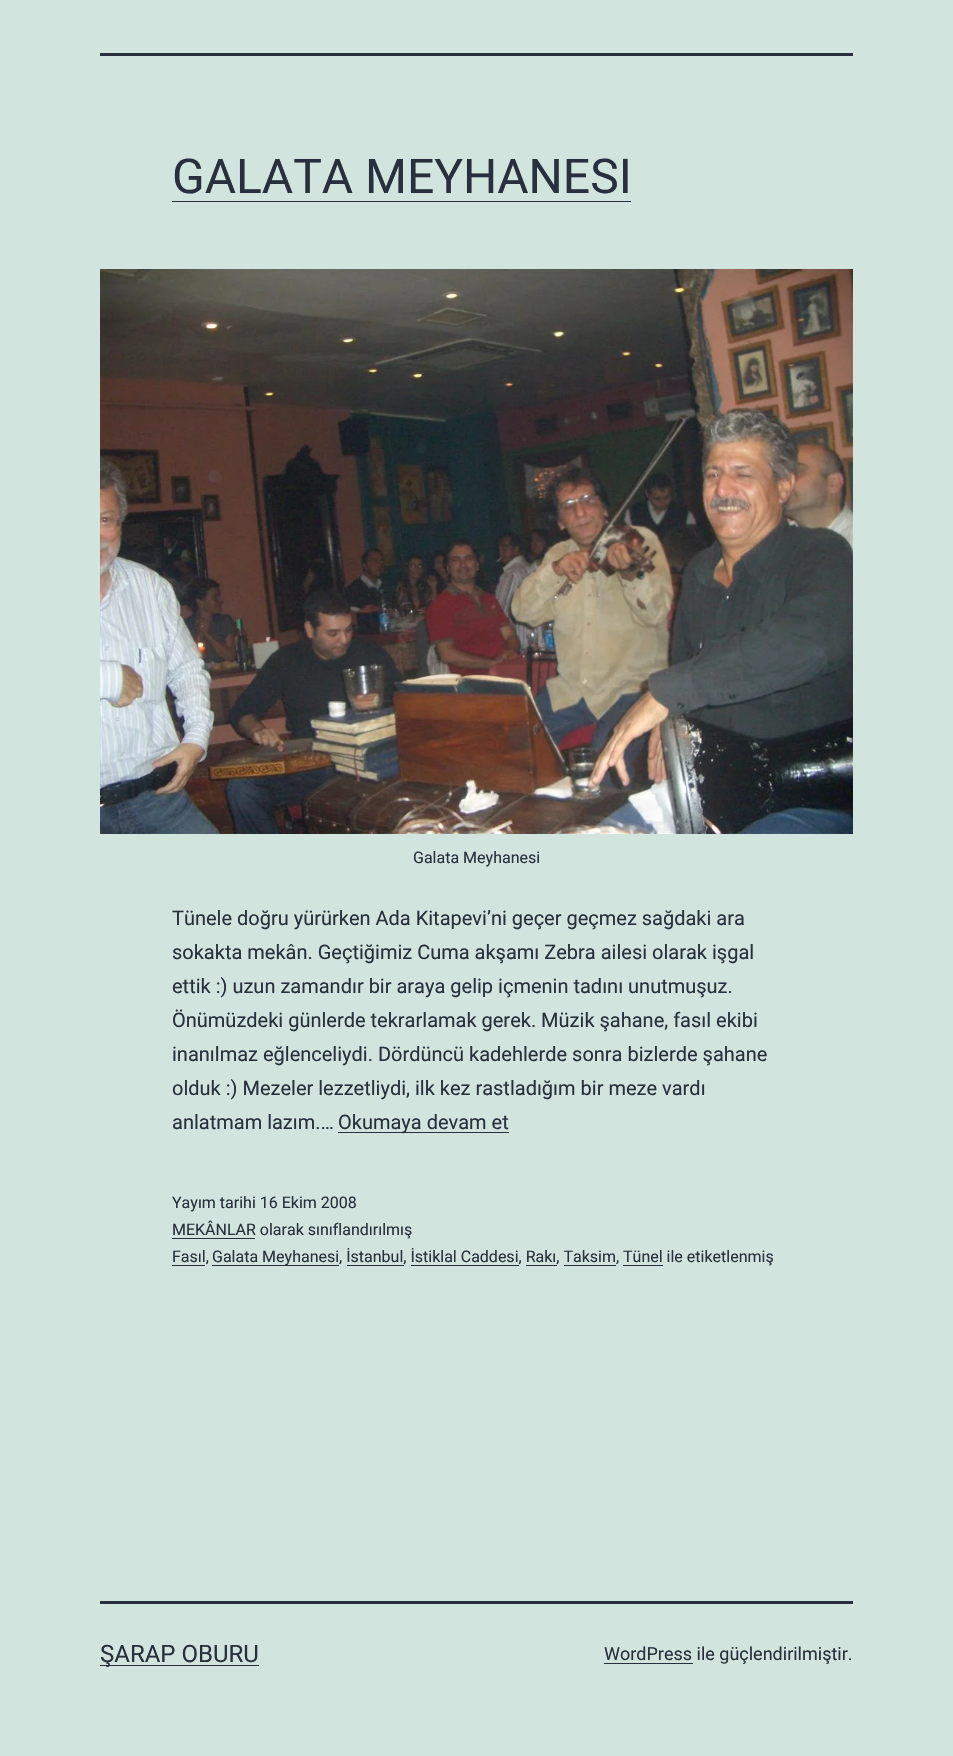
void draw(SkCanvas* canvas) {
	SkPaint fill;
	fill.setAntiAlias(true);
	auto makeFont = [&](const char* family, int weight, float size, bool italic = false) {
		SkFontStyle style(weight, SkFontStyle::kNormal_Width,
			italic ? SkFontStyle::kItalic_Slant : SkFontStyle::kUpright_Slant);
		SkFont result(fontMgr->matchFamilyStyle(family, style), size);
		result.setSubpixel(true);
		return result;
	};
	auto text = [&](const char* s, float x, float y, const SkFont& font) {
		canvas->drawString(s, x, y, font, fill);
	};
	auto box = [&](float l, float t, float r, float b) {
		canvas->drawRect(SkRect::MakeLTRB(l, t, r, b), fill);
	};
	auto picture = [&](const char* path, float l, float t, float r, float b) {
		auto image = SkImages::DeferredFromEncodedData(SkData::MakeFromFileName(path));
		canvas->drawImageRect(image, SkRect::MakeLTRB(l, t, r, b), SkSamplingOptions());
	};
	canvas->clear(0xFFD1E4DD);
	fill.setColor(0xFF28303D);
	box(100, 53, 853, 56);
	box(172, 201, 631, 202);
	picture("image0.png", 100, 269, 853, 834);
	box(338, 1132, 509, 1133);
	box(172, 1238, 255, 1239);
	box(172, 1265, 205, 1266);
	box(212, 1265, 339, 1266);
	box(347, 1265, 404, 1266);
	box(411, 1265, 519, 1266);
	box(526, 1265, 557, 1266);
	box(564, 1265, 616, 1266);
	box(623, 1265, 663, 1266);
	box(100, 1601, 853, 1604);
	box(100, 1665, 259, 1666);
	box(604, 1663, 693, 1664);
	auto font1 = makeFont("Roboto", 400, 48);
	text("GALATA MEYHANESI", 172, 193, font1);
	auto font2 = makeFont("Roboto", 400, 16);
	text("Galata Meyhanesi", 413, 863, font2);
	auto font3 = makeFont("Roboto", 400, 20);
	text("Tünele doğru yürürken Ada Kitapevi’ni geçer geçmez sağdaki ara", 172, 925, font3);
	text("sokakta mekân. Geçtiğimiz Cuma akşamı Zebra ailesi olarak işgal", 172, 959, font3);
	text("ettik :) uzun zamandır bir araya gelip içmenin tadını unutmuşuz.", 172, 993, font3);
	text("Önümüzdeki günlerde tekrarlamak gerek. Müzik şahane, fasıl ekibi", 172, 1027, font3);
	text("inanılmaz eğlenceliydi. Dördüncü kadehlerde sonra bizlerde şahane", 172, 1061, font3);
	text("olduk :) Mezeler lezzetliydi, ilk kez rastladığım bir meze vardı", 172, 1095, font3);
	text("anlatmam lazım.…", 172, 1129, font3);
	text("Okumaya devam et", 338, 1129, font3);
	text("Yayım tarihi 16 Ekim 2008", 172, 1208, font2);
	text("MEKÂNLAR olarak sınıflandırılmış", 172, 1235, font2);
	text("Fasıl,", 172, 1262, font2);
	text("Galata Meyhanesi, İstanbul, İstiklal Caddesi, Rakı, Taksim, Tünel ile etiketlenmiş", 212, 1262, font2);
	auto font4 = makeFont("Roboto", 400, 24);
	text("ŞARAP OBURU", 100, 1662, font4);
	auto font5 = makeFont("Roboto", 400, 18);
	text("WordPress ile güçlendirilmiştir.", 604, 1660, font5);
}
